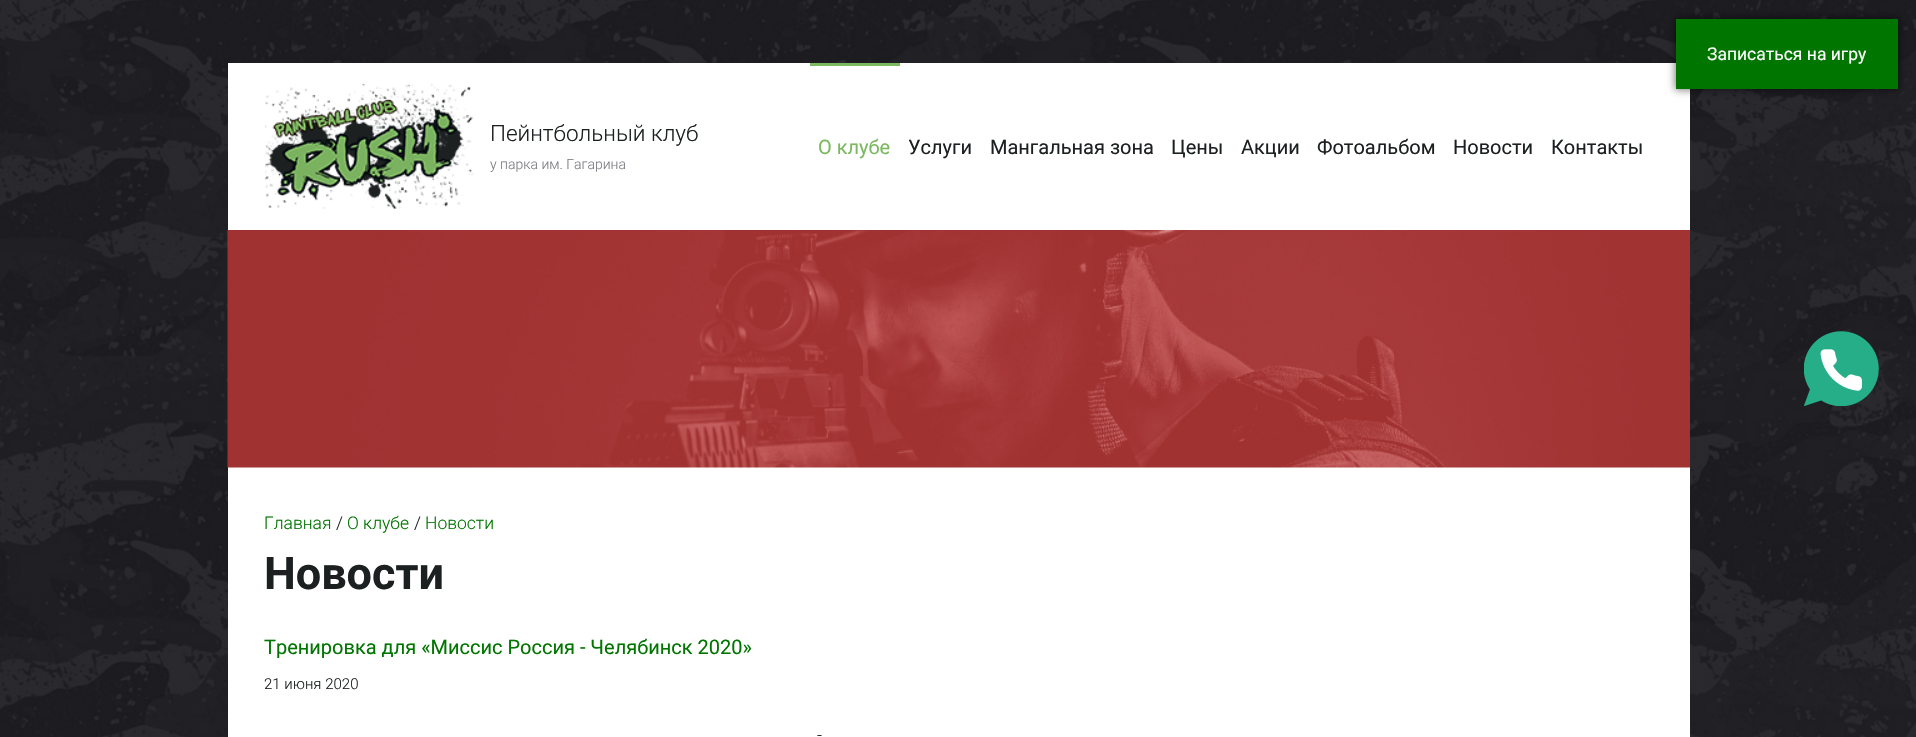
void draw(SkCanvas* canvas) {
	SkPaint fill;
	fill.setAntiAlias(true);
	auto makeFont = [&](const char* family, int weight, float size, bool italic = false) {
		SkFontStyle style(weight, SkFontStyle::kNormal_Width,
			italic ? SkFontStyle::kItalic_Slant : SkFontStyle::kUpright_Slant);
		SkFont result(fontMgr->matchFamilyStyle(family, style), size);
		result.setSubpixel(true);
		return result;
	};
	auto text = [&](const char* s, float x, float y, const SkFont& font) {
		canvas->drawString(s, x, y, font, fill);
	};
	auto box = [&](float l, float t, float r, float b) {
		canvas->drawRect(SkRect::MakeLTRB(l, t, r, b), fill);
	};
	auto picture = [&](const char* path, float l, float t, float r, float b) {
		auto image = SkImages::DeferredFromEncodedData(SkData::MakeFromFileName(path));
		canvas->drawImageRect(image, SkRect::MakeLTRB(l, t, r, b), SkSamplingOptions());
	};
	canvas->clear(0xFFFFFFFF);
	picture("image0.png", 0, 0, 1916, 737);
	fill.setColor(0xFFFFFFFF);
	box(228, 63, 1690, 737);
	fill.setColor(0x80000000);
	fill.setMaskFilter(SkMaskFilter::MakeBlur(kNormal_SkBlurStyle, 4));
	canvas->drawRect(SkRect::MakeLTRB(1675, 18, 1899, 90), fill);
	fill.setMaskFilter(nullptr);
	fill.setColor(0xFF007500);
	box(1676, 19, 1898, 89);
	picture("image1.png", 265, 83, 474, 209);
	fill.setColor(0xFF7BB85F);
	box(810, 63, 900, 66);
	picture("image2.png", 227, 230, 1690, 468);
	picture("image3.png", 1804, 331, 1879, 406);
	auto font1 = makeFont("Roboto", 400, 17.5f);
	fill.setColor(0xFFFFFFFF);
	text("Записаться на игру", 1707, 60, font1);
	auto font2 = makeFont("Roboto", 300, 22.5f);
	fill.setColor(0xFF1C2021);
	text("Пейнтбольный клуб", 490, 141, font2);
	auto font3 = makeFont("Roboto", 300, 14);
	fill.setColor(0xFF7B7980);
	text("у парка им. Гагарина", 490, 169, font3);
	auto font4 = makeFont("Roboto", 400, 20);
	fill.setColor(0xFF7BB85F);
	text("О клубе", 818, 154, font4);
	fill.setColor(0xFF1C2021);
	text("Услуги", 908, 154, font4);
	text("Мангальная зона", 990, 154, font4);
	text("Цены", 1171, 154, font4);
	text("Акции", 1241, 154, font4);
	text("Фотоальбом", 1317, 154, font4);
	text("Новости", 1453, 154, font4);
	text("Контакты", 1551, 154, font4);
	auto font5 = makeFont("Roboto", 300, 17.5f);
	fill.setColor(0xFF007500);
	text("Главная", 264, 529, font5);
	fill.setColor(0xFF1C2021);
	text("/", 336, 529, font5);
	fill.setColor(0xFF007500);
	text("О клубе", 347, 529, font5);
	fill.setColor(0xFF1C2021);
	text("/", 414, 529, font5);
	fill.setColor(0xFF007500);
	text("Новости", 425, 529, font5);
	auto font6 = makeFont("Roboto", 700, 45);
	fill.setColor(0xFF1C2021);
	text("Новости", 264, 589, font6);
	fill.setColor(0xFF007500);
	text("Тренировка для «Миссис Россия - Челябинск 2020»", 264, 654, font4);
	auto font7 = makeFont("Roboto", 300, 15);
	fill.setColor(0xFF1C2021);
	text("21 июня 2020", 264, 689, font7);
	text("-", 817, 741, font5);
}
